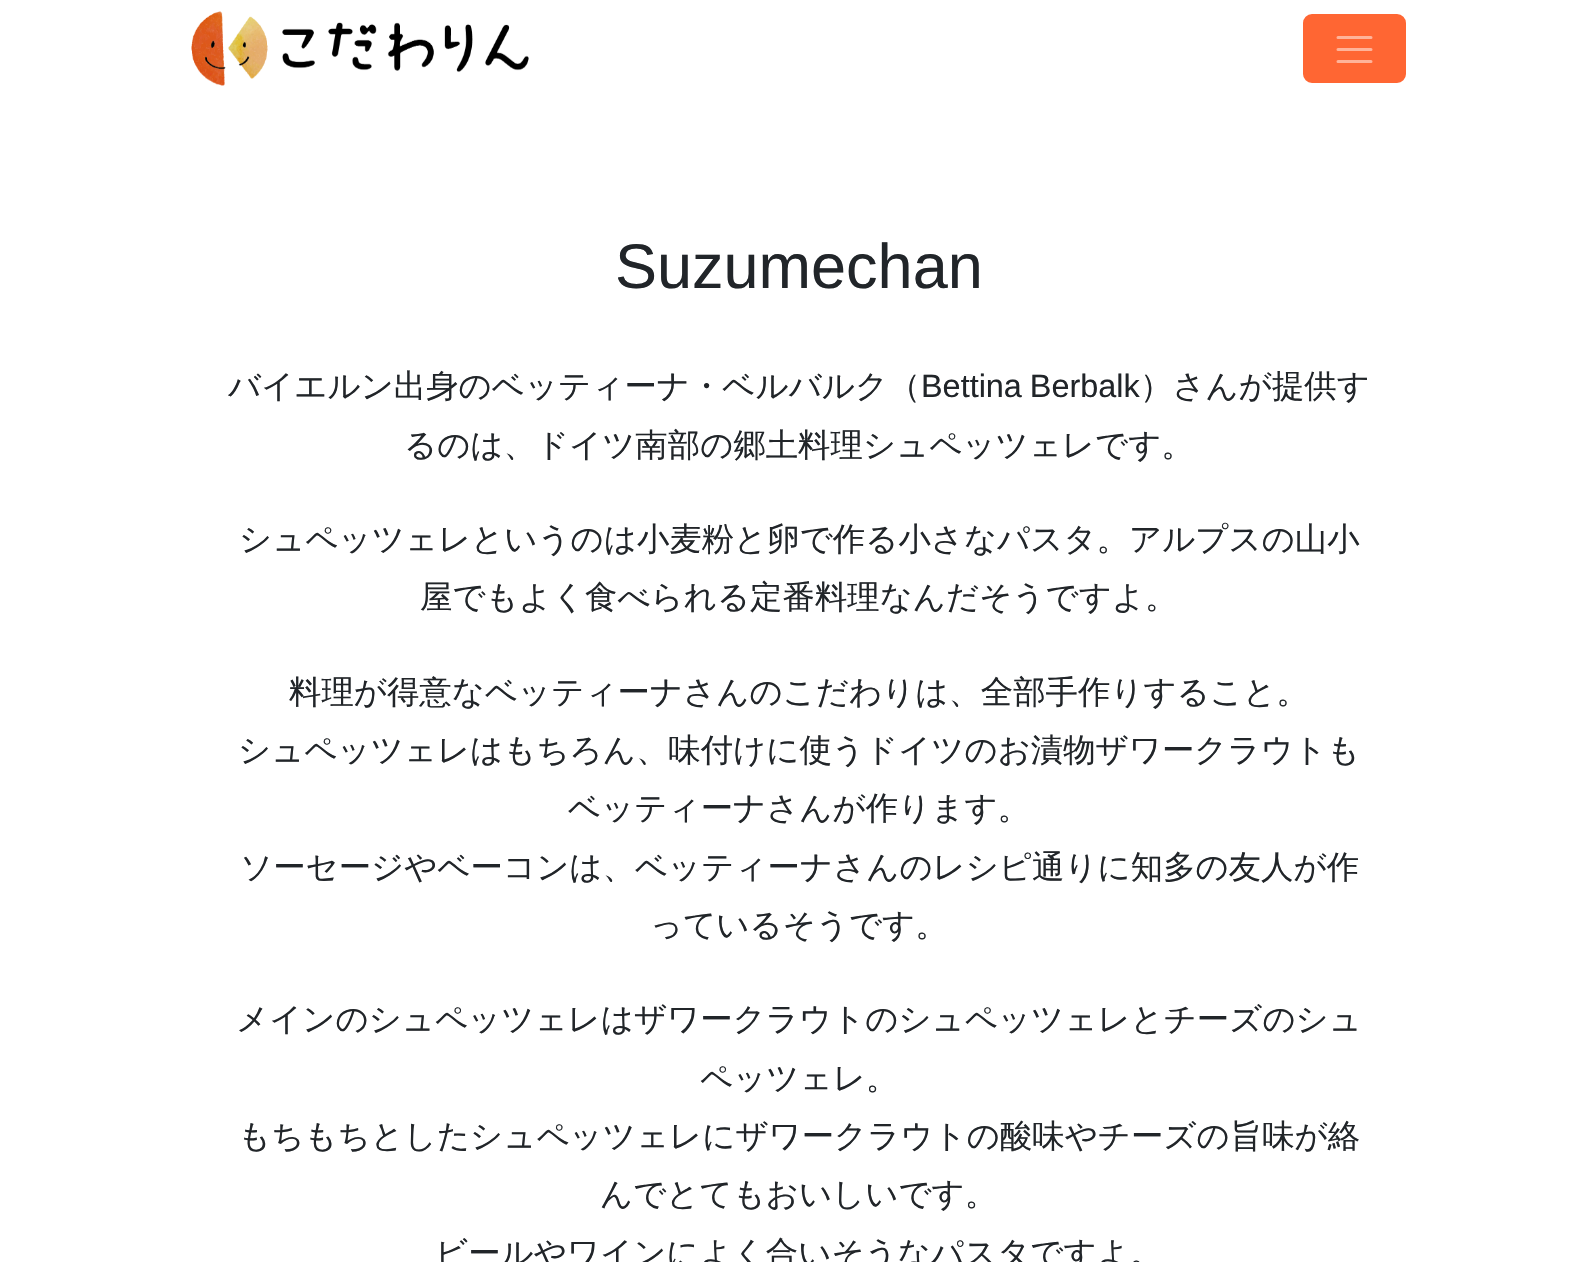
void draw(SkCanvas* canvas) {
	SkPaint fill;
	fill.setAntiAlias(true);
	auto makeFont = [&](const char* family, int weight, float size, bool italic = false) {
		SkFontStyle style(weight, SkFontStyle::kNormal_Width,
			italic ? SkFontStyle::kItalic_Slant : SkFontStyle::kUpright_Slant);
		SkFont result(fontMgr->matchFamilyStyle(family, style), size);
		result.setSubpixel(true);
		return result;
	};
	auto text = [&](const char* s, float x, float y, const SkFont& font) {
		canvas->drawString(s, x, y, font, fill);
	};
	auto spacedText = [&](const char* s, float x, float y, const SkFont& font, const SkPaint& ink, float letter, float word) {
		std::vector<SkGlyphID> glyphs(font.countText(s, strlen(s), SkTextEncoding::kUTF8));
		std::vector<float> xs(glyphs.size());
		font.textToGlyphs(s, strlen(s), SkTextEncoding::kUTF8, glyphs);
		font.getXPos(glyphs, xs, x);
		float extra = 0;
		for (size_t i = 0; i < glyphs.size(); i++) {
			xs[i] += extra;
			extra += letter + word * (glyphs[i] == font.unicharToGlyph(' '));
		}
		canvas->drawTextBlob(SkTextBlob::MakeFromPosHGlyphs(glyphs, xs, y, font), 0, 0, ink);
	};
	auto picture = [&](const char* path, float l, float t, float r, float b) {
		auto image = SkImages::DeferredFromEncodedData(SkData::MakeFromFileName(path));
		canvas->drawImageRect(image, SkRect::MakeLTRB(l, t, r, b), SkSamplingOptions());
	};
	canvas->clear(0xFFFFFFFF);
	picture("image0.png", 191, 11, 529, 86);
	fill.setColor(0xFFFF6633);
	canvas->drawRoundRect(SkRect::MakeLTRB(1304, 15, 1405, 82), 8, 8, fill);
	fill.setStyle(SkPaint::kStroke_Style);
	fill.setStrokeWidth(2);
	canvas->drawRoundRect(SkRect::MakeLTRB(1304, 15, 1405, 82), 8, 8, fill);
	fill.setStrokeWidth(3);
	fill.setStrokeCap(SkPaint::kRound_Cap);
	fill.setColor(0xFFFFB399);
	canvas->drawPath(SkPathBuilder().moveTo(1338, 37.5f).lineTo(1371, 37.5f).moveTo(1338, 49.5f).lineTo(1371, 49.5f).moveTo(1338, 61.5f).lineTo(1371, 61.5f).detach(), fill);
	auto font1 = makeFont("Liberation Sans", 400, 63);
	fill.setStyle(SkPaint::kFill_Style);
	fill.setColor(0xFF212529);
	text("Suzumechan", 615, 288, font1);
	auto font2 = makeFont("WenQuanYi Zen Hei", 500, 32.4f);
	text("バイエルン出身のベッティーナ・ベルバルク（", 228, 397, font2);
	auto font3 = makeFont("Liberation Sans", 400, 32.4f);
	spacedText("Bettina Berbalk", 921, 397, font3, fill, 0, -1);
	text("）さんが提供す", 1140, 397, font2);
	text("るのは、ドイツ南部の郷土料理シュペッツェレです。", 404, 456, font2);
	text("シュペッツェレというのは小麦粉と卵で作る小さなパスタ。アルプスの山小", 239, 550, font2);
	text("屋でもよく食べられる定番料理なんだそうですよ。", 420, 608, font2);
	text("料理が得意なベッティーナさんのこだわりは、全部手作りすること。", 289, 703, font2);
	text("シュペッツェレはもちろん、味付けに使うドイツのお漬物ザワークラウトも", 238, 761, font2);
	text("ベッティーナさんが作ります。", 568, 819, font2);
	text("ソーセージやベーコンは、ベッティーナさんのレシピ通りに知多の友人が作", 240, 878, font2);
	text("っているそうです。", 650, 936, font2);
	text("メインのシュペッツェレはザワークラウトのシュペッツェレとチーズのシュ", 236, 1030, font2);
	text("ペッツェレ。", 700, 1089, font2);
	text("もちもちとしたシュペッツェレにザワークラウトの酸味やチーズの旨味が絡", 238, 1147, font2);
	text("んでとてもおいしいです。", 600, 1205, font2);
	text("ビールやワインによく合いそうなパスタですよ。", 435, 1264, font2);
}
